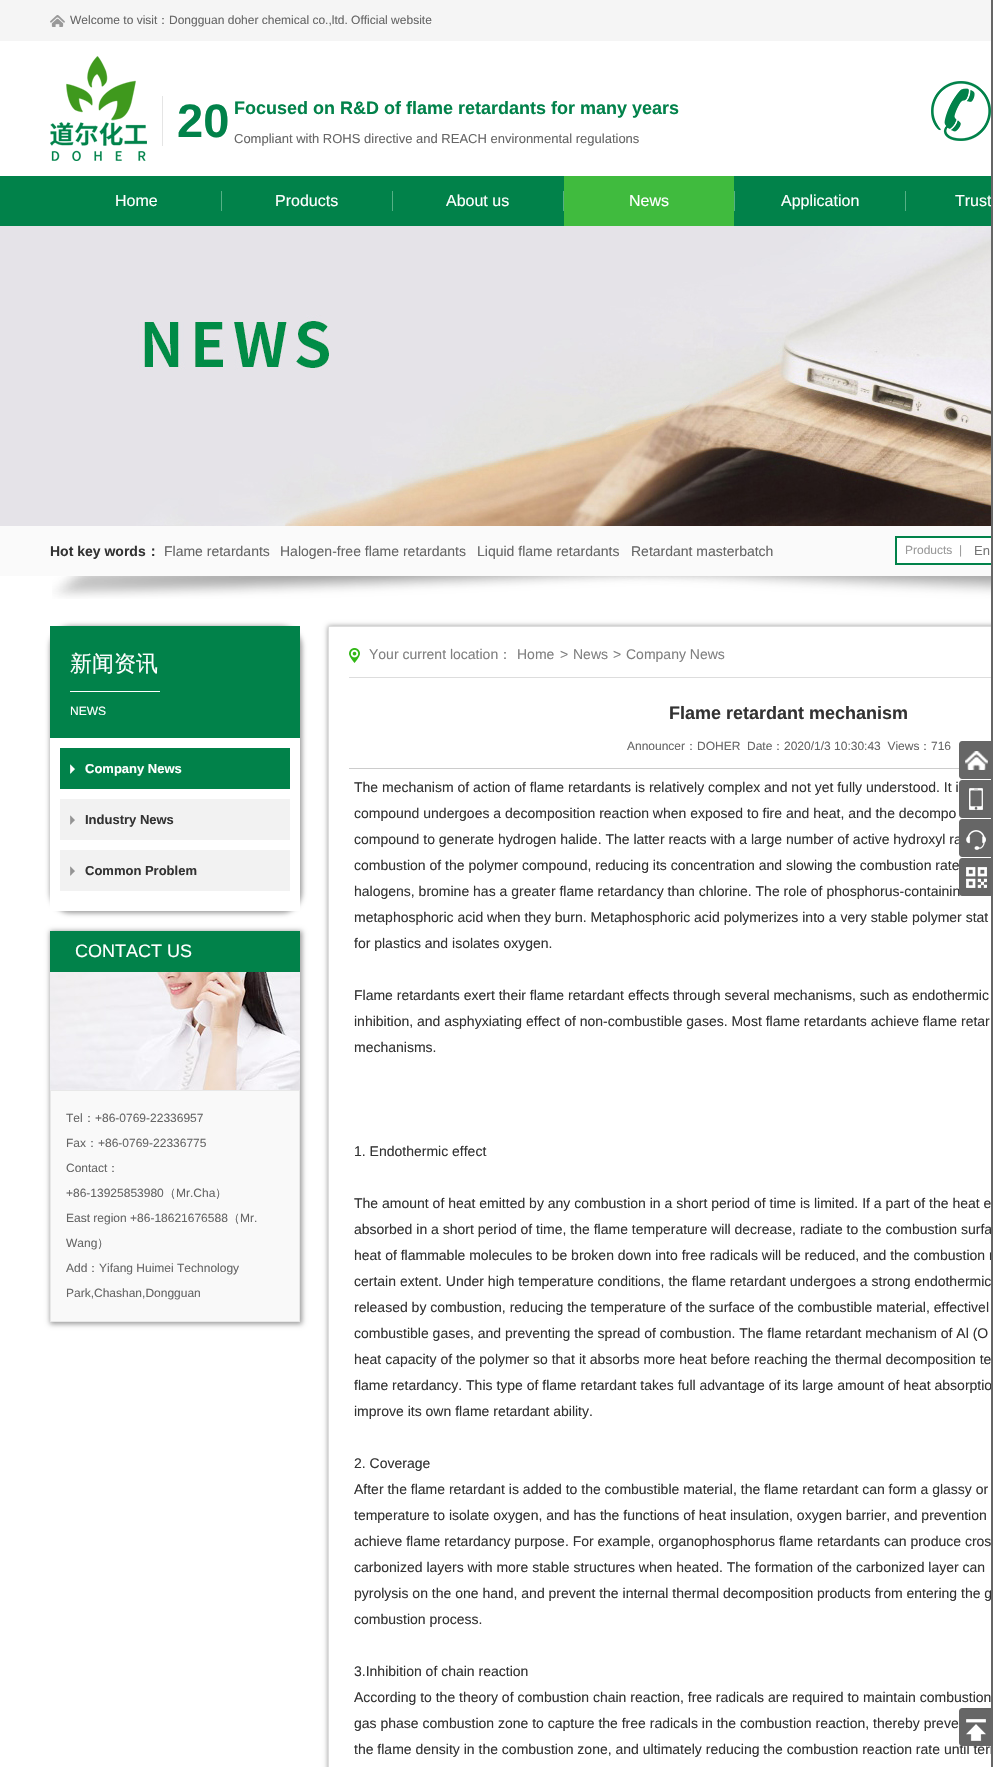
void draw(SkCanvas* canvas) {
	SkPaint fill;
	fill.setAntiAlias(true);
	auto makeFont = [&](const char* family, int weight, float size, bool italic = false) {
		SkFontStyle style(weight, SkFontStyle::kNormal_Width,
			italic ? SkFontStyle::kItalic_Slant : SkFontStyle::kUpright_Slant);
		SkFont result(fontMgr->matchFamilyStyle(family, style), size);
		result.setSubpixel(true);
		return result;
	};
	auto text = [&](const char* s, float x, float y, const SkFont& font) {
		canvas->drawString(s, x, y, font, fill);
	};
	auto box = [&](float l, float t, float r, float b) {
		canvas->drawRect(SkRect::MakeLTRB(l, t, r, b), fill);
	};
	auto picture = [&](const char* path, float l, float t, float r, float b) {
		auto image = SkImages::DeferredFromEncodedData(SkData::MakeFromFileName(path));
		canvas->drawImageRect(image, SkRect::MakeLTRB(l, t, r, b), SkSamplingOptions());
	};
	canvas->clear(0xFFFFFFFF);
	fill.setColor(0xFFF5F5F5);
	box(0, 0, 991, 41);
	picture("image0.png", 50, 15, 65, 27);
	picture("image1.png", 50, 56, 147, 161);
	fill.setColor(0xFFE5E5E5);
	box(162, 96, 163, 146);
	picture("image2.png", 931, 81, 991, 141);
	fill.setColor(0xFF01824A);
	box(0, 176, 991, 226);
	fill.setColor(0xFF55B085);
	box(221, 191, 222, 211);
	box(392, 191, 393, 211);
	box(563, 191, 564, 211);
	fill.setColor(0xFF40BB3E);
	box(564, 176, 734, 226);
	fill.setColor(0xFF55B085);
	box(734, 191, 735, 211);
	box(905, 191, 906, 211);
	picture("image8.png", 0, 226, 991, 526);
	fill.setColor(0xFFFAFAFA);
	box(0, 526, 991, 576);
	fill.setColor(0xFFFFFFFF);
	box(897, 538, 991, 563);
	fill.setColor(0xFF01824A);
	box(895, 536, 993, 538);
	box(895, 563, 993, 565);
	box(895, 536, 897, 565);
	picture("image9.png", 52, 576, 991, 599);
	fill.setColor(0xFF999999);
	fill.setMaskFilter(SkMaskFilter::MakeBlur(kNormal_SkBlurStyle, 2.5f));
	canvas->drawRoundRect(SkRect::MakeLTRB(50, 626, 302, 913), 21, 21, fill);
	fill.setMaskFilter(nullptr);
	fill.setColor(0xFFFFFFFF);
	box(50, 738, 300, 911);
	fill.setColor(0xFF01824A);
	box(50, 626, 300, 738);
	fill.setColor(0xFFFFFFFF);
	box(70, 691, 160, 692);
	fill.setColor(0xFF01824A);
	box(60, 748, 290, 789);
	picture("image10.png", 70, 764, 75, 774);
	fill.setColor(0xFFF2F2F2);
	box(60, 799, 290, 840);
	picture("image11.png", 70, 815, 75, 825);
	box(60, 850, 290, 891);
	picture("image11.png", 70, 866, 75, 876);
	fill.setColor(0xFF999999);
	fill.setMaskFilter(SkMaskFilter::MakeBlur(kNormal_SkBlurStyle, 2.5f));
	canvas->drawRect(SkRect::MakeLTRB(50, 931, 302, 1324), fill);
	fill.setMaskFilter(nullptr);
	fill.setColor(0xFF01824A);
	box(50, 931, 300, 972);
	picture("image12.png", 50, 972, 300, 1090);
	fill.setColor(0xFFF9F9F9);
	canvas->drawRect(SkRect::MakeLTRB(50.5f, 1090.5f, 299.5f, 1321.5f), fill);
	fill.setStyle(SkPaint::kStroke_Style);
	fill.setStrokeWidth(1);
	fill.setColor(0xFFE8E8E8);
	canvas->drawRect(SkRect::MakeLTRB(50.5f, 1090.5f, 299.5f, 1321.5f), fill);
	canvas->save();
	canvas->clipPath(SkPathBuilder(SkPathFillType::kEvenOdd).moveTo(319, 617).lineTo(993, 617).lineTo(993, 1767).lineTo(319, 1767).close().moveTo(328, 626).lineTo(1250, 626).lineTo(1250, 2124).lineTo(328, 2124).close().detach(), true);
	fill.setStyle(SkPaint::kFill_Style);
	fill.setColor(0xFF999999);
	fill.setMaskFilter(SkMaskFilter::MakeBlur(kNormal_SkBlurStyle, 2.5f));
	canvas->drawRect(SkRect::MakeLTRB(328, 626, 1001, 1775), fill);
	fill.setMaskFilter(nullptr);
	canvas->restore();
	fill.setStyle(SkPaint::kStroke_Style);
	fill.setColor(0xFFDDDDDD);
	canvas->drawRect(SkRect::MakeLTRB(328.5f, 626.5f, 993.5f, 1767.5f), fill);
	picture("image13.png", 349, 648, 360, 663);
	fill.setStyle(SkPaint::kFill_Style);
	box(349, 677, 993, 678);
	fill.setColor(0xFFCCCCCC);
	box(349, 768, 959, 769);
	auto font1 = makeFont("Liberation Sans", 400, 12);
	fill.setColor(0xFF666666);
	text("Welcome to visit", 70, 24, font1);
	auto font2 = makeFont("WenQuanYi Zen Hei", 500, 12);
	text("：", 157, 24, font2);
	text("Dongguan doher chemical co.,ltd. Official website", 169, 24, font1);
	auto font3 = makeFont("Liberation Sans", 700, 47);
	fill.setColor(0xFF01824A);
	text("20", 177, 137, font3);
	auto font4 = makeFont("Liberation Sans", 700, 18);
	text("Focused on R&D of flame retardants for many years", 234, 114, font4);
	auto font5 = makeFont("Liberation Sans", 400, 13);
	fill.setColor(0xFF666666);
	text("Compliant with ROHS directive and REACH environmental regulations", 234, 143, font5);
	auto font6 = makeFont("Liberation Sans", 400, 16);
	fill.setColor(0xFFFFFFFF);
	text("Home", 115, 206, font6);
	text("Products", 275, 206, font6);
	text("About us", 446, 206, font6);
	text("News", 629, 206, font6);
	text("Application", 781, 206, font6);
	text("Trust", 955, 206, font6);
	auto font7 = makeFont("Liberation Sans", 700, 14);
	fill.setColor(0xFF333333);
	text("Hot key words", 50, 556, font7);
	auto font8 = makeFont("WenQuanYi Zen Hei", 700, 14);
	text("：", 146, 556, font8);
	auto font9 = makeFont("Liberation Sans", 400, 14);
	fill.setColor(0xFF666666);
	text("Flame retardants", 164, 556, font9);
	text("Halogen-free flame retardants", 280, 556, font9);
	text("Liquid flame retardants", 477, 556, font9);
	text("Retardant masterbatch", 631, 556, font9);
	fill.setColor(0xFF999999);
	text("Products  |", 905, 554, font1);
	fill.setColor(0xFF757575);
	text("En", 974, 555, font5);
	auto font10 = makeFont("WenQuanYi Zen Hei", 500, 22);
	fill.setColor(0xFFFFFFFF);
	text("新闻资讯", 70, 671, font10);
	text("NEWS", 70, 715, font1);
	auto font11 = makeFont("Liberation Sans", 700, 13);
	text("Company News", 85, 773, font11);
	fill.setColor(0xFF333333);
	text("Industry News", 85, 824, font11);
	text("Common Problem", 85, 875, font11);
	auto font12 = makeFont("Liberation Sans", 400, 18);
	fill.setColor(0xFFFFFFFF);
	text("CONTACT US", 75, 957, font12);
	fill.setColor(0xFF666666);
	text("Tel", 66, 1122, font1);
	text("：", 83, 1122, font2);
	text("+86-0769-22336957", 95, 1122, font1);
	text("Fax", 66, 1147, font1);
	text("：", 86, 1147, font2);
	text("+86-0769-22336775", 98, 1147, font1);
	text("Contact", 66, 1172, font1);
	text("：", 107, 1172, font2);
	text("+86-13925853980", 66, 1197, font1);
	text("（", 164, 1197, font2);
	text("Mr.Cha", 176, 1197, font1);
	text("）", 215, 1197, font2);
	text("East region +86-18621676588", 66, 1222, font1);
	text("（", 228, 1222, font2);
	text("Mr.", 240, 1222, font1);
	text("Wang", 66, 1247, font1);
	text("）", 97, 1247, font2);
	text("Add", 66, 1272, font1);
	text("：", 87, 1272, font2);
	text("Yifang Huimei Technology", 99, 1272, font1);
	text("Park,Chashan,Dongguan", 66, 1297, font1);
	fill.setColor(0xFF808080);
	text("Your current location", 369, 659, font9);
	auto font13 = makeFont("WenQuanYi Zen Hei", 500, 14);
	text("：", 498, 659, font13);
	text("Home", 517, 659, font9);
	text(">", 560, 659, font9);
	text("News", 573, 659, font9);
	text(">", 613, 659, font9);
	text("Company News", 626, 659, font9);
	fill.setColor(0xFF333333);
	text("Flame retardant mechanism", 669, 719, font4);
	fill.setColor(0xFF666666);
	text("Announcer", 627, 750, font1);
	text("：", 685, 750, font2);
	text("DOHER  Date", 697, 750, font1);
	text("：", 772, 750, font2);
	text("2020/1/3 10:30:43  Views", 784, 750, font1);
	text("：", 919, 750, font2);
	text("716", 931, 750, font1);
	fill.setColor(0xFF333333);
	text("The mechanism of action of flame retardants is relatively complex and not yet fully understood. It i", 354, 792, font9);
	text("compound undergoes a decomposition reaction when exposed to fire and heat, and the decompo", 354, 818, font9);
	text("compound to generate hydrogen halide. The latter reacts with a large number of active hydroxyl ra", 354, 844, font9);
	text("combustion of the polymer compound, reducing its concentration and slowing the combustion rate", 354, 870, font9);
	text("halogens, bromine has a greater flame retardancy than chlorine. The role of phosphorus-containin", 354, 896, font9);
	text("metaphosphoric acid when they burn. Metaphosphoric acid polymerizes into a very stable polymer stat", 354, 922, font9);
	text("for plastics and isolates oxygen.", 354, 948, font9);
	text("Flame retardants exert their flame retardant effects through several mechanisms, such as endothermic", 354, 1000, font9);
	text("inhibition, and asphyxiating effect of non-combustible gases. Most flame retardants achieve flame retar", 354, 1026, font9);
	text("mechanisms.", 354, 1052, font9);
	text("1. Endothermic effect", 354, 1156, font9);
	text("The amount of heat emitted by any combustion in a short period of time is limited. If a part of the heat e", 354, 1208, font9);
	text("absorbed in a short period of time, the flame temperature will decrease, radiate to the combustion surfa", 354, 1234, font9);
	text("heat of flammable molecules to be broken down into free radicals will be reduced, and the combustion r", 354, 1260, font9);
	text("certain extent. Under high temperature conditions, the flame retardant undergoes a strong endothermic", 354, 1286, font9);
	text("released by combustion, reducing the temperature of the surface of the combustible material, effectivel", 354, 1312, font9);
	text("combustible gases, and preventing the spread of combustion. The flame retardant mechanism of Al (O", 354, 1338, font9);
	text("heat capacity of the polymer so that it absorbs more heat before reaching the thermal decomposition te", 354, 1364, font9);
	text("flame retardancy. This type of flame retardant takes full advantage of its large amount of heat absorptio", 354, 1390, font9);
	text("improve its own flame retardant ability.", 354, 1416, font9);
	text("2. Coverage", 354, 1468, font9);
	text("After the flame retardant is added to the combustible material, the flame retardant can form a glassy or", 354, 1494, font9);
	text("temperature to isolate oxygen, and has the functions of heat insulation, oxygen barrier, and prevention", 354, 1520, font9);
	text("achieve flame retardancy purpose. For example, organophosphorus flame retardants can produce cros", 354, 1546, font9);
	text("carbonized layers with more stable structures when heated. The formation of the carbonized layer can", 354, 1572, font9);
	text("pyrolysis on the one hand, and prevent the internal thermal decomposition products from entering the g", 354, 1598, font9);
	text("combustion process.", 354, 1624, font9);
	text("3.Inhibition of chain reaction", 354, 1676, font9);
	text("According to the theory of combustion chain reaction, free radicals are required to maintain combustion", 354, 1702, font9);
	text("gas phase combustion zone to capture the free radicals in the combustion reaction, thereby preve", 354, 1728, font9);
	text("the flame density in the combustion zone, and ultimately reducing the combustion reaction rate until term", 354, 1754, font9);
	fill.setColor(0xFF666666);
	box(991, 0, 993, 1767);
	canvas->drawPath(SkPathBuilder().moveTo(962, 1708).lineTo(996, 1708).lineTo(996, 1746).lineTo(962, 1746).cubicTo(960.5f, 1746, 959, 1744.5f, 959, 1743).lineTo(959, 1711).cubicTo(959, 1709.5f, 960.5f, 1708, 962, 1708).close().detach(), fill);
	picture("image7.png", 966, 1719, 986, 1741);
	canvas->drawPath(SkPathBuilder().moveTo(962, 858).lineTo(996, 858).lineTo(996, 896).lineTo(962, 896).cubicTo(960.5f, 896, 959, 894.5f, 959, 893).lineTo(959, 861).cubicTo(959, 859.5f, 960.5f, 858, 962, 858).close().detach(), fill);
	picture("image6.png", 966, 867, 987, 888);
	canvas->drawPath(SkPathBuilder().moveTo(962, 819).lineTo(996, 819).lineTo(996, 857).lineTo(962, 857).cubicTo(960.5f, 857, 959, 855.5f, 959, 854).lineTo(959, 822).cubicTo(959, 820.5f, 960.5f, 819, 962, 819).close().detach(), fill);
	picture("image5.png", 966, 830, 986, 850);
	canvas->drawPath(SkPathBuilder().moveTo(962, 780).lineTo(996, 780).lineTo(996, 818).lineTo(962, 818).cubicTo(960.5f, 818, 959, 816.5f, 959, 815).lineTo(959, 783).cubicTo(959, 781.5f, 960.5f, 780, 962, 780).close().detach(), fill);
	picture("image4.png", 969, 788, 983, 810);
	canvas->drawPath(SkPathBuilder().moveTo(962, 741).lineTo(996, 741).lineTo(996, 779).lineTo(962, 779).cubicTo(960.5f, 779, 959, 777.5f, 959, 776).lineTo(959, 744).cubicTo(959, 742.5f, 960.5f, 741, 962, 741).close().detach(), fill);
	picture("image3.png", 965, 751, 988, 770);
}
